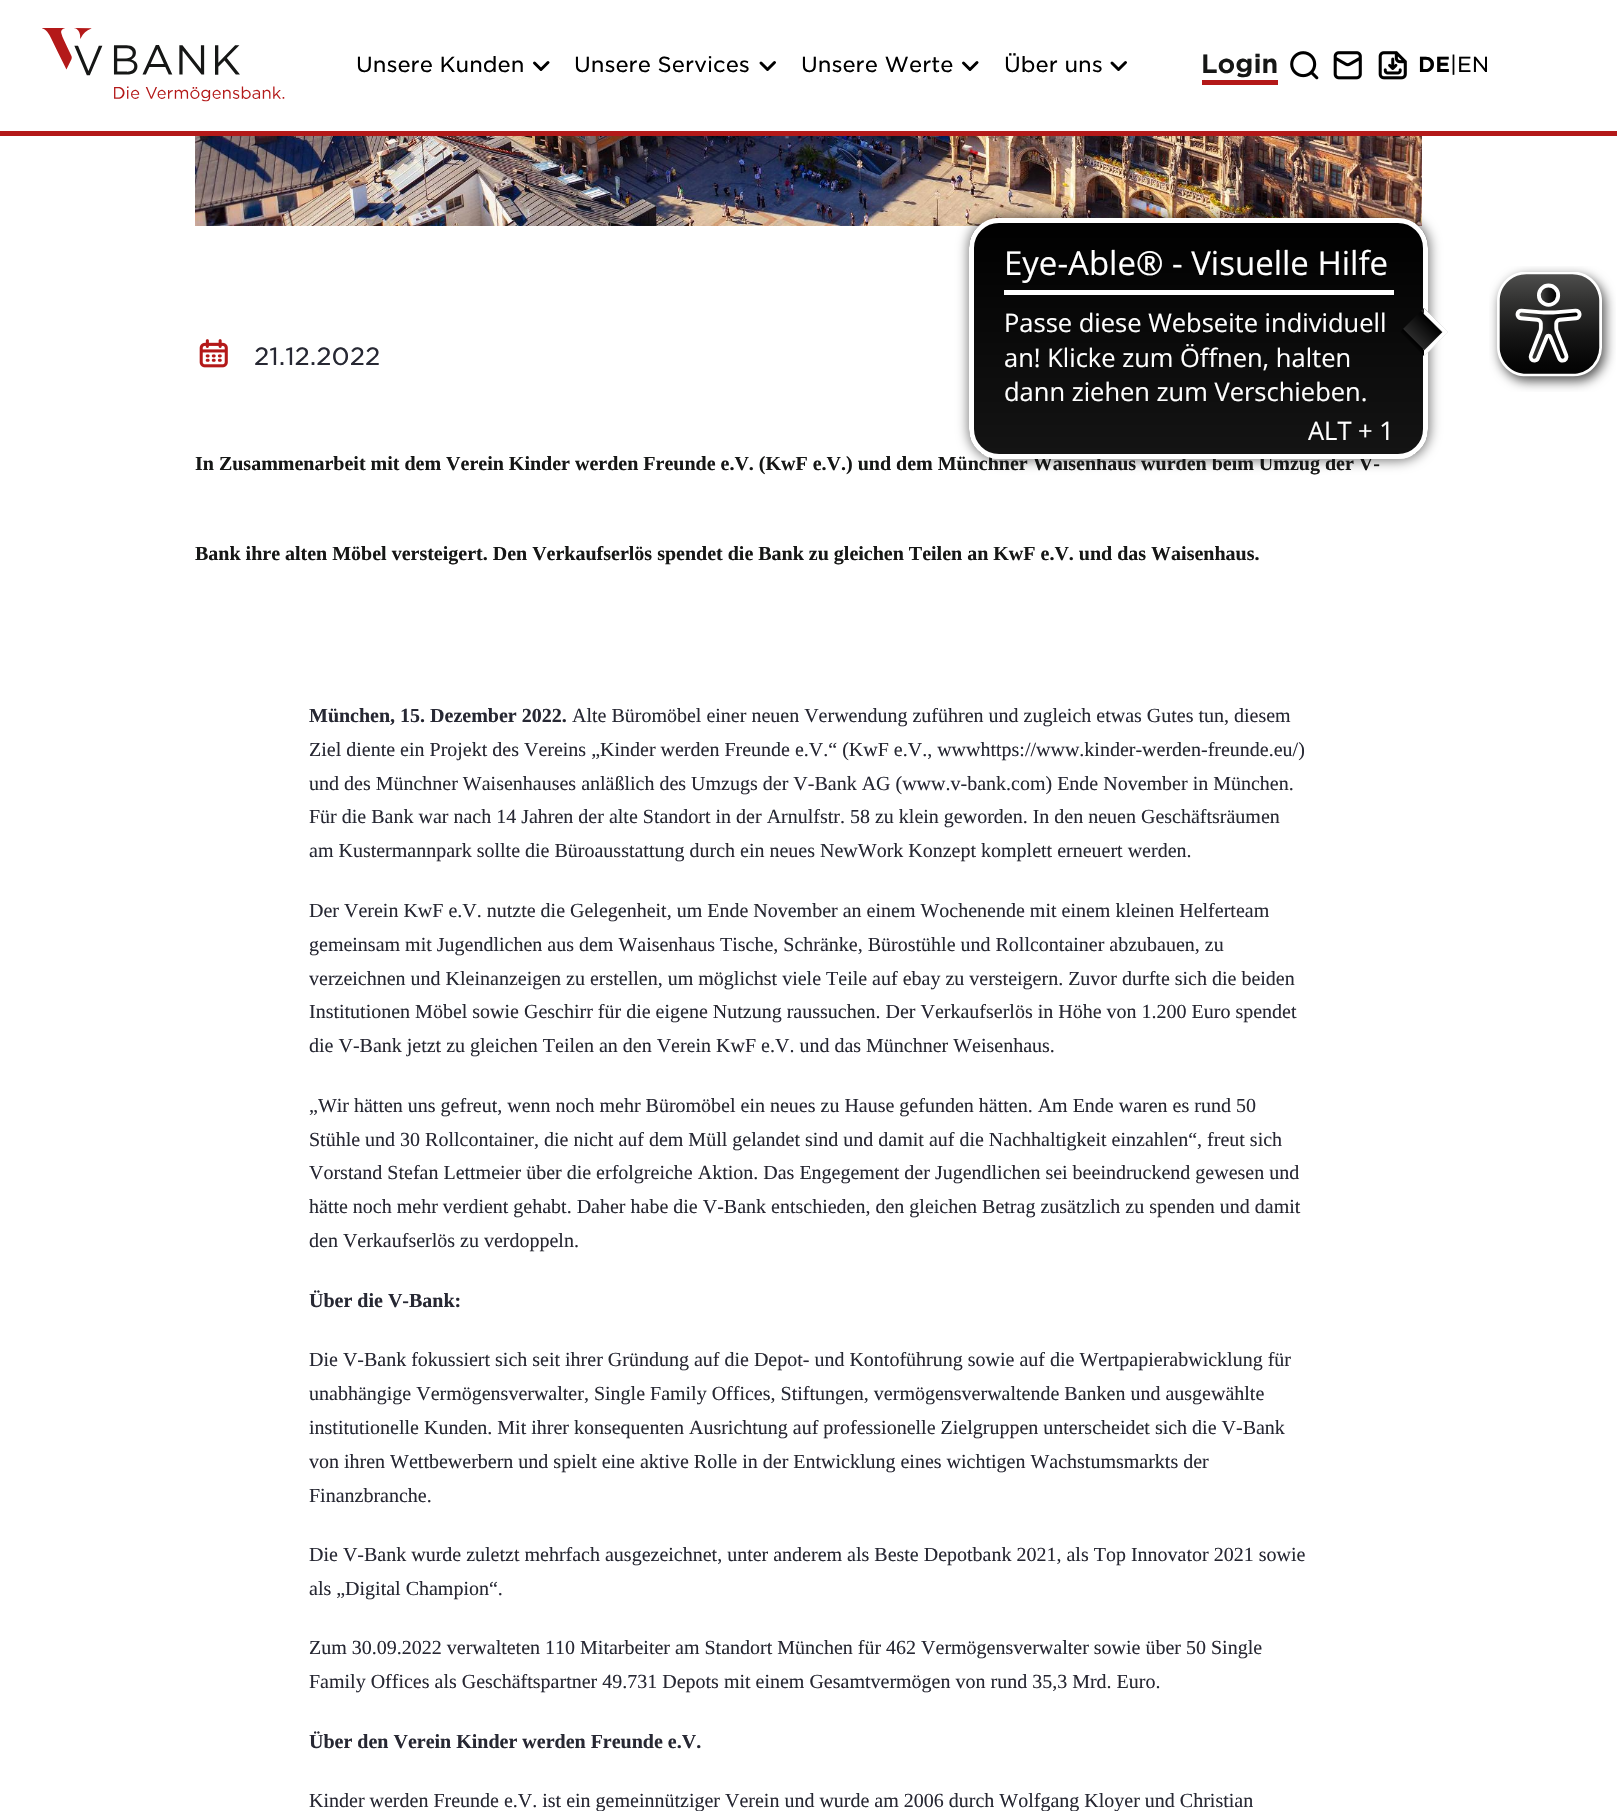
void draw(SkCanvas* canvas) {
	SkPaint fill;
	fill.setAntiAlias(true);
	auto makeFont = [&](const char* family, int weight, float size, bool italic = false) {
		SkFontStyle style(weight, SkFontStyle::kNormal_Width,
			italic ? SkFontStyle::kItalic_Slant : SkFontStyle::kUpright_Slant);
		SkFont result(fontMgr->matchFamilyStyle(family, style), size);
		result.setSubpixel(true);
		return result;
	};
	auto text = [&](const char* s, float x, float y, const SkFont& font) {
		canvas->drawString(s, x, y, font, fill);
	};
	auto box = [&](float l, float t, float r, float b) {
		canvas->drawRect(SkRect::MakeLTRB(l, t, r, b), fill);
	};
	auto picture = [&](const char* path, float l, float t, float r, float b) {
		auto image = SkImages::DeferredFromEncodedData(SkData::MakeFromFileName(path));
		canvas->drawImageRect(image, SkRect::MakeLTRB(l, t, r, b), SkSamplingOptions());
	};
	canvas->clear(0xFFFFFFFF);
	fill.setColor(0xFFB41919);
	box(0, 131, 1617, 136);
	picture("image0.png", 42, 28, 285, 102);
	fill.setStyle(SkPaint::kStroke_Style);
	fill.setStrokeWidth(3);
	fill.setStrokeCap(SkPaint::kRound_Cap);
	fill.setColor(0xFF000000);
	canvas->drawPath(SkPathBuilder().moveTo(534.5f, 63).lineTo(541, 69.5f).moveTo(541.5f, 69).lineTo(548, 62.5f).detach(), fill);
	canvas->drawPath(SkPathBuilder().moveTo(761, 63).lineTo(767.5f, 69.5f).moveTo(768, 69).lineTo(774.5f, 62.5f).detach(), fill);
	canvas->drawPath(SkPathBuilder().moveTo(963.5f, 63).lineTo(970, 69.5f).moveTo(970.5f, 69).lineTo(977, 62.5f).detach(), fill);
	canvas->drawPath(SkPathBuilder().moveTo(1112, 63).lineTo(1118.5f, 69.5f).moveTo(1119, 69).lineTo(1125.5f, 62.5f).detach(), fill);
	fill.setStyle(SkPaint::kFill_Style);
	fill.setColor(0xFFB41919);
	box(1202, 80, 1278, 85);
	picture("image1.png", 1290, 51, 1319, 80);
	picture("image2.png", 1333, 51, 1362, 80);
	picture("image3.png", 1378, 51, 1407, 80);
	picture("image4.png", 195, 136, 1422, 226);
	picture("image5.png", 199, 339, 228, 368);
	canvas->save();
	canvas->clipPath(SkPathBuilder(SkPathFillType::kEvenOdd).moveTo(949, 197).lineTo(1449, 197).lineTo(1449, 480).lineTo(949, 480).close().moveTo(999, 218).lineTo(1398, 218).cubicTo(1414.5f, 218, 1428, 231.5f, 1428, 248).lineTo(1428, 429).cubicTo(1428, 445.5f, 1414.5f, 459, 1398, 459).lineTo(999, 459).cubicTo(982.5f, 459, 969, 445.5f, 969, 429).lineTo(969, 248).cubicTo(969, 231.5f, 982.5f, 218, 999, 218).close().detach(), true);
	fill.setColor(0x80000000);
	fill.setMaskFilter(SkMaskFilter::MakeBlur(kNormal_SkBlurStyle, 6));
	canvas->drawRoundRect(SkRect::MakeLTRB(968, 216, 1430, 461), 32, 32, fill);
	fill.setMaskFilter(nullptr);
	canvas->restore();
	canvas->save();
	canvas->clipPath(SkPathBuilder().moveTo(999, 218).lineTo(1398, 218).cubicTo(1414.5f, 218, 1428, 231.5f, 1428, 248).lineTo(1428, 429).cubicTo(1428, 445.5f, 1414.5f, 459, 1398, 459).lineTo(999, 459).cubicTo(982.5f, 459, 969, 445.5f, 969, 429).lineTo(969, 248).cubicTo(969, 231.5f, 982.5f, 218, 999, 218).close().detach(), true);
	{
		const SkColor colors[] = {0xFF000000, 0xFF141414};
		const float stops[] = {0, 1};
		const SkPoint ends[] = {{1199, 221}, {1199, 454}};
		fill.setShader(SkGradientShader::MakeLinear(ends, colors, stops, 2, SkTileMode::kClamp));
		fill.setAlpha(255);
	}
	box(969, 222, 1428, 455);
	canvas->restore();
	picture("image6.png", 1489, 266, 1616, 392);
	auto font1 = makeFont("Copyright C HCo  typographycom", 300, 21);
	fill.setShader(nullptr);
	fill.setColor(0xFF000000);
	text("Unsere Kunden", 356, 72, font1);
	text("Unsere Services", 574, 72, font1);
	text("Unsere Werte", 801, 72, font1);
	text("Über uns", 1004, 72, font1);
	auto font2 = makeFont("Copyright C HCo  typographycom", 400, 25.5f);
	fill.setColor(0xFF161716);
	text("Login", 1201, 73, font2);
	auto font3 = makeFont("Copyright C HCo  typographycom", 400, 21);
	fill.setColor(0xFF000000);
	text("DE", 1418, 72, font3);
	text("|EN", 1450, 72, font1);
	auto font4 = makeFont("Copyright C HCo  typographycom", 300, 24);
	fill.setColor(0xFF272833);
	text("21.12.2022", 254, 365, font4);
	auto font5 = makeFont("Liberation Serif", 700, 20);
	fill.setColor(0xFF161716);
	text("In Zusammenarbeit mit dem Verein Kinder werden Freunde e.V. (KwF e.V.) und dem Münchner Waisenhaus wurden beim Umzug der V-", 195, 470, font5);
	text("Bank ihre alten Möbel versteigert. Den Verkaufserlös spendet die Bank zu gleichen Teilen an KwF e.V. und das Waisenhaus.", 195, 560, font5);
	fill.setColor(0xFF272833);
	text("München, 15. Dezember 2022.", 309, 722, font5);
	auto font6 = makeFont("Liberation Serif", 400, 20);
	text("Alte Büromöbel einer neuen Verwendung zuführen und zugleich etwas Gutes tun, diesem", 572, 722, font6);
	text("Ziel diente ein Projekt des Vereins „Kinder werden Freunde e.V.“ (KwF e.V., wwwhttps://www.kinder-werden-freunde.eu/)", 309, 756, font6);
	text("und des Münchner Waisenhauses anläßlich des Umzugs der V-Bank AG (www.v-bank.com) Ende November in München.", 309, 790, font6);
	text("Für die Bank war nach 14 Jahren der alte Standort in der Arnulfstr. 58 zu klein geworden. In den neuen Geschäftsräumen", 309, 823, font6);
	text("am Kustermannpark sollte die Büroausstattung durch ein neues NewWork Konzept komplett erneuert werden.", 309, 857, font6);
	text("Der Verein KwF e.V. nutzte die Gelegenheit, um Ende November an einem Wochenende mit einem kleinen Helferteam", 309, 917, font6);
	text("gemeinsam mit Jugendlichen aus dem Waisenhaus Tische, Schränke, Bürostühle und Rollcontainer abzubauen, zu", 309, 951, font6);
	text("verzeichnen und Kleinanzeigen zu erstellen, um möglichst viele Teile auf ebay zu versteigern. Zuvor durfte sich die beiden", 309, 985, font6);
	text("Institutionen Möbel sowie Geschirr für die eigene Nutzung raussuchen. Der Verkaufserlös in Höhe von 1.200 Euro spendet", 309, 1018, font6);
	text("die V-Bank jetzt zu gleichen Teilen an den Verein KwF e.V. und das Münchner Weisenhaus.", 309, 1052, font6);
	text("„Wir hätten uns gefreut, wenn noch mehr Büromöbel ein neues zu Hause gefunden hätten. Am Ende waren es rund 50", 309, 1112, font6);
	text("Stühle und 30 Rollcontainer, die nicht auf dem Müll gelandet sind und damit auf die Nachhaltigkeit einzahlen“, freut sich", 309, 1146, font6);
	text("Vorstand Stefan Lettmeier über die erfolgreiche Aktion. Das Engegement der Jugendlichen sei beeindruckend gewesen und", 309, 1179, font6);
	text("hätte noch mehr verdient gehabt. Daher habe die V-Bank entschieden, den gleichen Betrag zusätzlich zu spenden und damit", 309, 1213, font6);
	text("den Verkaufserlös zu verdoppeln.", 309, 1247, font6);
	text("Über die V-Bank:", 309, 1307, font5);
	text("Die V-Bank fokussiert sich seit ihrer Gründung auf die Depot- und Kontoführung sowie auf die Wertpapierabwicklung für", 309, 1366, font6);
	text("unabhängige Vermögensverwalter, Single Family Offices, Stiftungen, vermögensverwaltende Banken und ausgewählte", 309, 1400, font6);
	text("institutionelle Kunden. Mit ihrer konsequenten Ausrichtung auf professionelle Zielgruppen unterscheidet sich die V-Bank", 309, 1434, font6);
	text("von ihren Wettbewerbern und spielt eine aktive Rolle in der Entwicklung eines wichtigen Wachstumsmarkts der", 309, 1468, font6);
	text("Finanzbranche.", 309, 1502, font6);
	text("Die V-Bank wurde zuletzt mehrfach ausgezeichnet, unter anderem als Beste Depotbank 2021, als Top Innovator 2021 sowie", 309, 1561, font6);
	text("als „Digital Champion“.", 309, 1595, font6);
	text("Zum 30.09.2022 verwalteten 110 Mitarbeiter am Standort München für 462 Vermögensverwalter sowie über 50 Single", 309, 1654, font6);
	text("Family Offices als Geschäftspartner 49.731 Depots mit einem Gesamtvermögen von rund 35,3 Mrd. Euro.", 309, 1688, font6);
	text("Über den Verein Kinder werden Freunde e.V.", 309, 1748, font5);
	text("Kinder werden Freunde e.V. ist ein gemeinnütziger Verein und wurde am 2006 durch Wolfgang Kloyer und Christian", 309, 1807, font6);
	fill.setStyle(SkPaint::kStroke_Style);
	fill.setStrokeWidth(5);
	fill.setStrokeCap(SkPaint::kButt_Cap);
	fill.setColor(0xFFFFFFFF);
	canvas->drawRoundRect(SkRect::MakeLTRB(971.5f, 220.5f, 1425.5f, 456.5f), 27.5f, 27.5f, fill);
	fill.setStyle(SkPaint::kFill_Style);
	box(1004, 290, 1394, 295);
	auto font7 = makeFont("Open Sans", 400, 33);
	text("Eye-Able® - Visuelle Hilfe", 1004, 275, font7);
	auto font8 = makeFont("Open Sans", 400, 25.5f);
	text("Passe diese Webseite individuell", 1004, 332, font8);
	text("an! Klicke zum Öffnen, halten", 1004, 367, font8);
	text("dann ziehen zum Verschieben.", 1004, 401, font8);
	{
		const SkColor colors[] = {0xFF000000, 0xFF2B2B2B};
		const float stops[] = {0, 1};
		const SkPoint ends[] = {{1451, 305}, {1433, 323}};
		fill.setShader(SkGradientShader::MakeLinear(ends, colors, stops, 2, SkTileMode::kClamp));
		fill.setAlpha(255);
	}
	canvas->drawPath(SkPathBuilder().moveTo(1424, 308).lineTo(1448, 332).lineTo(1445, 335).lineTo(1421, 311).close().detach(), fill);
	{
		const SkColor colors[] = {0xFF000000, 0xFF2B2B2B};
		const float stops[] = {0, 1};
		const SkPoint ends[] = {{1433, 323}, {1415, 341}};
		fill.setShader(SkGradientShader::MakeLinear(ends, colors, stops, 2, SkTileMode::kClamp));
		fill.setAlpha(255);
	}
	canvas->drawPath(SkPathBuilder().moveTo(1421, 311).lineTo(1445, 335).lineTo(1427, 353).lineTo(1403, 329).close().detach(), fill);
	{
		const SkColor colors[] = {0xFF000000, 0xFF2B2B2B};
		const float stops[] = {0, 1};
		const SkPoint ends[] = {{1415, 341}, {1397, 359}};
		fill.setShader(SkGradientShader::MakeLinear(ends, colors, stops, 2, SkTileMode::kClamp));
		fill.setAlpha(255);
	}
	canvas->drawPath(SkPathBuilder().moveTo(1424, 356).lineTo(1400, 332).lineTo(1403, 329).lineTo(1427, 353).close().detach(), fill);
	fill.setShader(nullptr);
	fill.setColor(0xFFFFFFFF);
	canvas->drawPath(SkPathBuilder().moveTo(1424, 308).lineTo(1448.5f, 332).lineTo(1442.5f, 332).lineTo(1424, 314).close().moveTo(1448.5f, 332).lineTo(1424, 356.5f).lineTo(1424, 350.5f).lineTo(1442.5f, 332).close().detach(), fill);
	text("ALT + 1", 1308, 440, font8);
}
